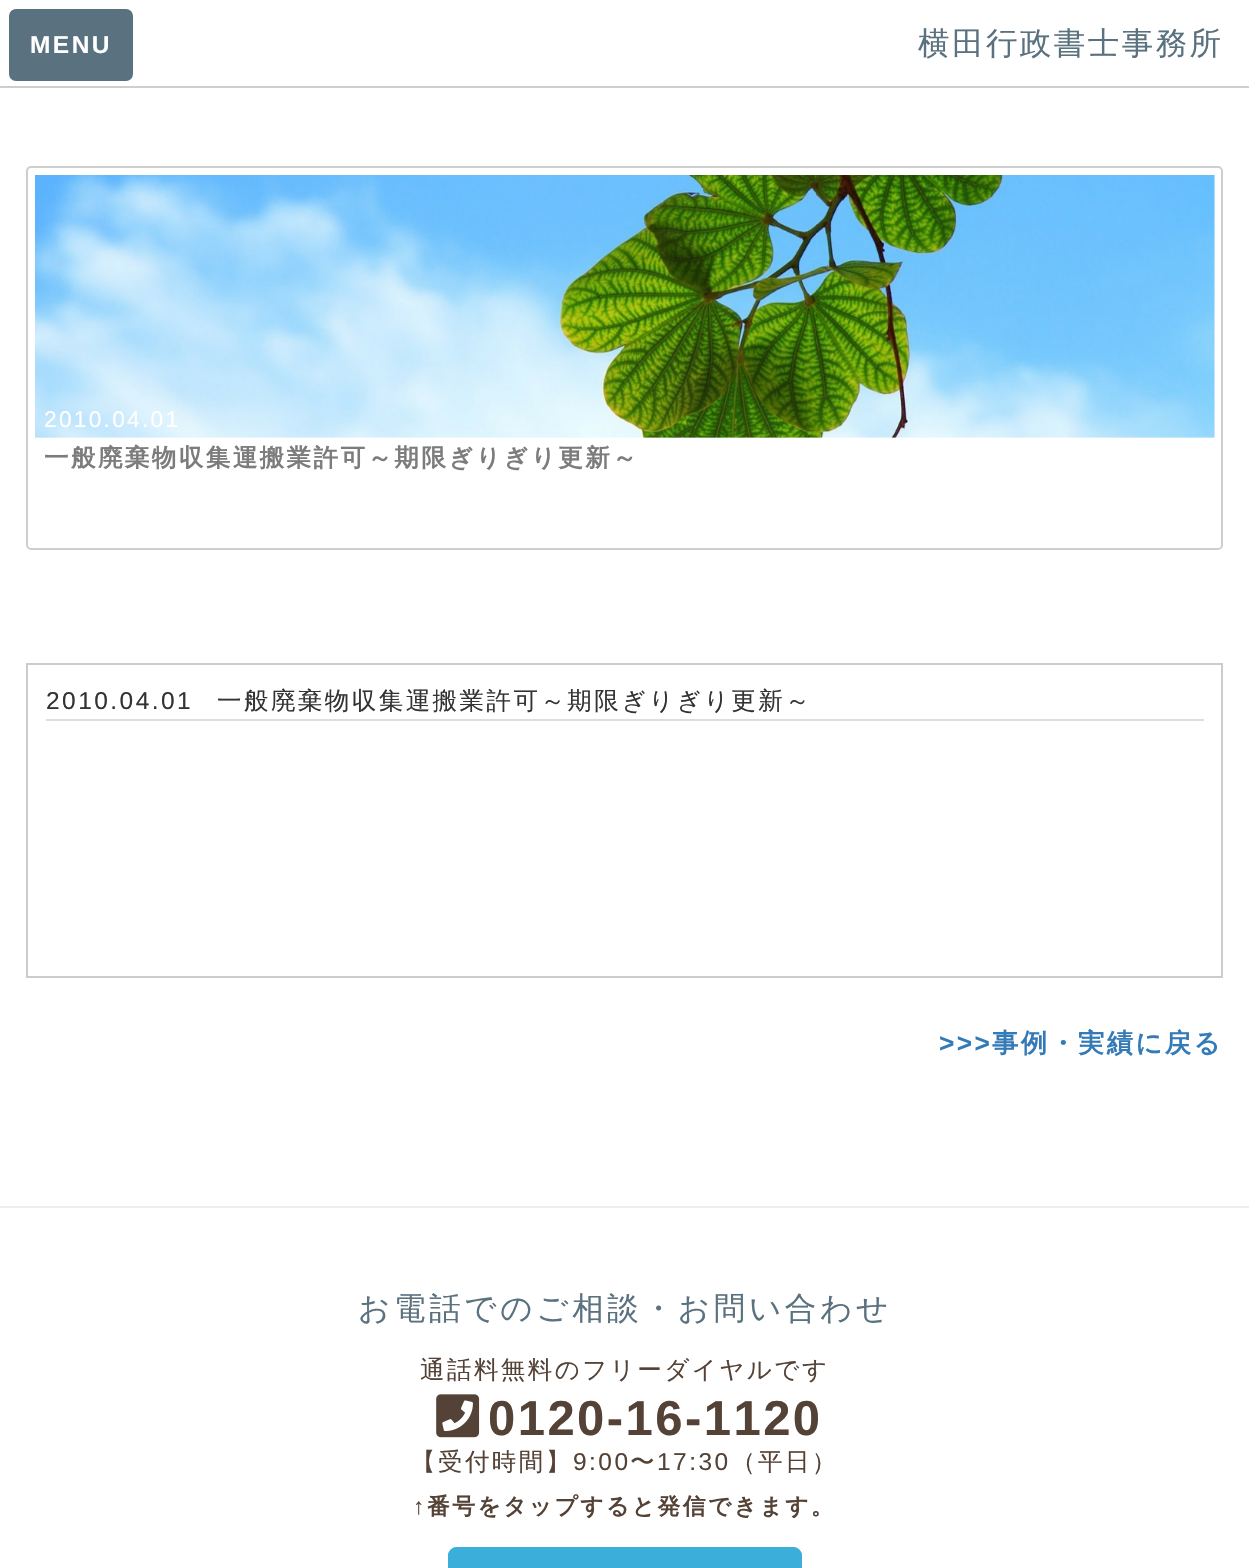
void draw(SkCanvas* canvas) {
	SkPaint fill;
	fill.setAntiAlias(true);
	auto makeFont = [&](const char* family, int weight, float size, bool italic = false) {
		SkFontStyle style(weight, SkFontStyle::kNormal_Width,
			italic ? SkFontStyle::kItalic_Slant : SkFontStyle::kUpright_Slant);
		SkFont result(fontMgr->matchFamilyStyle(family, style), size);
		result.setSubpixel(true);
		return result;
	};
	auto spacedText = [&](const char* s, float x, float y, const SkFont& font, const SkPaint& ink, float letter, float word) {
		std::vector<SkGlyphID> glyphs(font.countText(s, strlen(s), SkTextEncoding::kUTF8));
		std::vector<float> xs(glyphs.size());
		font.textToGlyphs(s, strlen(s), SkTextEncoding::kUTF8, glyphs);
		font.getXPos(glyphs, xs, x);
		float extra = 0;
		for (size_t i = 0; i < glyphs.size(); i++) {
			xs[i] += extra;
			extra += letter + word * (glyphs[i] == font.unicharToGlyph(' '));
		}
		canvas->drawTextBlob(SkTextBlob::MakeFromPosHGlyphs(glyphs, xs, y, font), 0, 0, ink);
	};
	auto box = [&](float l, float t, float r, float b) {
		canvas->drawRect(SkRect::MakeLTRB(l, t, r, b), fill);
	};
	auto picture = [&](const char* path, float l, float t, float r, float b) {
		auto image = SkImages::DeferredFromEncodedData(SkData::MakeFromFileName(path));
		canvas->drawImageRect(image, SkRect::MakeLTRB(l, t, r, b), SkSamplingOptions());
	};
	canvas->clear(0xFFFFFFFF);
	fill.setColor(0xFF5A717F);
	canvas->drawRoundRect(SkRect::MakeLTRB(11, 11, 131, 79), 5, 5, fill);
	fill.setStyle(SkPaint::kStroke_Style);
	fill.setStrokeWidth(4);
	canvas->drawRoundRect(SkRect::MakeLTRB(11, 11, 131, 79), 5, 5, fill);
	fill.setStyle(SkPaint::kFill_Style);
	fill.setColor(0xFFCECECE);
	box(0, 86, 1249, 88);
	fill.setStyle(SkPaint::kStroke_Style);
	fill.setStrokeWidth(2);
	canvas->drawRoundRect(SkRect::MakeLTRB(27, 167, 1222, 549), 4, 4, fill);
	picture("image0.png", 35, 175, 1215, 438);
	fill.setColor(0xFFCCCCCC);
	canvas->drawRect(SkRect::MakeLTRB(27, 664, 1222, 977), fill);
	fill.setStyle(SkPaint::kFill_Style);
	fill.setColor(0xFFDDDDDD);
	box(46, 719, 1204, 721);
	fill.setColor(0xFFEEEEEE);
	box(0, 1206, 1249, 1208);
	picture("image1.png", 436, 1394, 480, 1438);
	fill.setColor(0xFF3BAFDA);
	canvas->drawPath(SkPathBuilder().moveTo(457, 1547).lineTo(793, 1547).cubicTo(798, 1547, 802, 1551, 802, 1556).lineTo(802, 1568).lineTo(448, 1568).lineTo(448, 1556).cubicTo(448, 1551, 452, 1547, 457, 1547).close().detach(), fill);
	fill.setStyle(SkPaint::kStroke_Style);
	canvas->drawRoundRect(SkRect::MakeLTRB(449, 1548, 801, 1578), 8, 8, fill);
	auto font1 = makeFont("Liberation Sans", 700, 24.5f);
	fill.setStyle(SkPaint::kFill_Style);
	fill.setColor(0xFFFFFFFF);
	spacedText("MENU", 30, 53, font1, fill, 2.45f, 0);
	auto font2 = makeFont("WenQuanYi Zen Hei", 500, 31.5f);
	fill.setColor(0xFF5A717F);
	spacedText("横田行政書士事務所", 918, 54, font2, fill, 2.45f, 0);
	auto font3 = makeFont("Liberation Sans", 400, 22.75f);
	fill.setColor(0xFFFFFFFF);
	spacedText("2010.04.01", 44, 427, font3, fill, 2.25f, 0);
	auto font4 = makeFont("WenQuanYi Zen Hei", 700, 24.5f);
	fill.setColor(0xFF7C7C7C);
	spacedText("一般廃棄物収集運搬業許可～期限ぎりぎり更新～", 44, 466, font4, fill, 2.45f, 0);
	auto font5 = makeFont("Liberation Sans", 400, 24.5f);
	fill.setColor(0xFF333333);
	spacedText("2010.04.01", 46, 709, font5, fill, 2.45f, 0);
	auto font6 = makeFont("WenQuanYi Zen Hei", 500, 24.5f);
	spacedText("一般廃棄物収集運搬業許可～期限ぎりぎり更新～", 217, 709, font6, fill, 2.45f, 0);
	auto font7 = makeFont("Liberation Sans", 700, 26.25f);
	fill.setColor(0xFF337AB7);
	spacedText(">>>", 939, 1052, font7, fill, 2.45f, 0);
	auto font8 = makeFont("WenQuanYi Zen Hei", 700, 26.25f);
	spacedText("事例・実績に戻る", 992, 1052, font8, fill, 2.45f, 0);
	fill.setColor(0xFF5A717F);
	spacedText("お電話でのご相談・お問い合わせ", 358, 1319, font2, fill, 3.7f, 0);
	fill.setColor(0xFF544236);
	spacedText("通話料無料のフリーダイヤルです", 420, 1378, font6, fill, 2.45f, 0);
	auto font9 = makeFont("Liberation Sans", 700, 49);
	spacedText("0120-16-1120", 488, 1435, font9, fill, 2.45f, 0);
	spacedText("【受付時間】", 411, 1470, font6, fill, 2.45f, 0);
	spacedText("9:00", 573, 1470, font5, fill, 2.45f, 0);
	spacedText("〜", 630, 1470, font6, fill, 2.45f, 0);
	spacedText("17:30", 657, 1470, font5, fill, 2.45f, 0);
	spacedText("（平日）", 731, 1470, font6, fill, 2.45f, 0);
	auto font10 = makeFont("Liberation Sans", 700, 22.75f);
	spacedText("↑", 413, 1514, font10, fill, 2.45f, 0);
	auto font11 = makeFont("WenQuanYi Zen Hei", 700, 22.75f);
	spacedText("番号をタップすると発信できます。", 427, 1514, font11, fill, 2.45f, 0);
}
